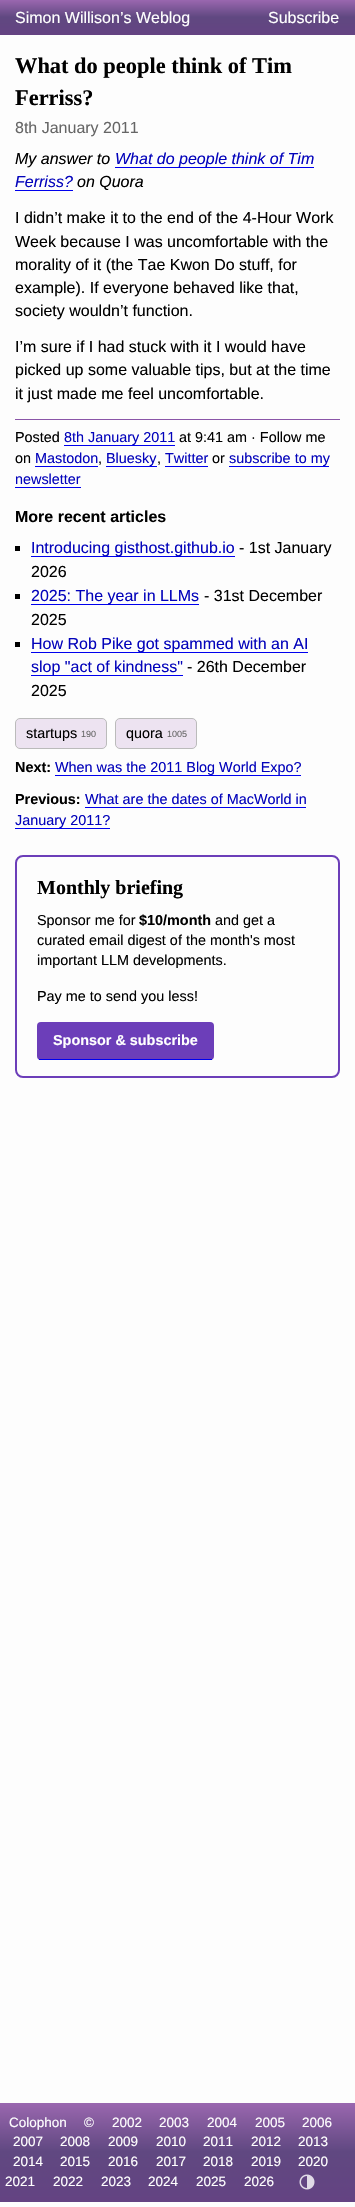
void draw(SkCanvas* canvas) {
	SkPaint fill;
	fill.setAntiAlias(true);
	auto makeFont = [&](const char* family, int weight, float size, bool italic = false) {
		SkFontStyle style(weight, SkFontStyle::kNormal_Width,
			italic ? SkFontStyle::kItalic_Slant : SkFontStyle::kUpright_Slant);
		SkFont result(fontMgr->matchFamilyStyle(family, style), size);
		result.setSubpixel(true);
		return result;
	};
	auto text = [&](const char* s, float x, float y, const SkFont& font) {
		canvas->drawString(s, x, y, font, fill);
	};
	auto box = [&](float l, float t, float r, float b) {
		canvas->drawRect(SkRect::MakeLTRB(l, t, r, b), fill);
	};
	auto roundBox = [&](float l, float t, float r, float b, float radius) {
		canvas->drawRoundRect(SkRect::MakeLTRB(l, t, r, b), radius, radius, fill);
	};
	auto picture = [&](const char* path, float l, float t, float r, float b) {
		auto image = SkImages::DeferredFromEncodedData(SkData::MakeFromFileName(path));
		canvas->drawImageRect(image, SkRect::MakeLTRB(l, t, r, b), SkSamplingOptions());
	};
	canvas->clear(0xFFFDFDFD);
	{
		const SkColor colors[] = {0xFF9A67AF, 0xFF604881, 0xFF644382};
		const float stops[] = {0, 0.49f, 1};
		const SkPoint ends[] = {{178, 0}, {178, 35}};
		fill.setShader(SkGradientShader::MakeLinear(ends, colors, stops, 3, SkTileMode::kClamp));
		fill.setAlpha(255);
	}
	box(0, 0, 355, 35);
	fill.setShader(nullptr);
	fill.setColor(0xFF0000EE);
	box(115, 167, 314, 168);
	box(15, 190, 73, 191);
	fill.setColor(0xFF8A55A8);
	box(15, 419, 340, 420);
	fill.setColor(0xFF0000EE);
	box(64, 445, 175, 446);
	box(35, 466, 98, 467);
	box(106, 466, 157, 467);
	box(165, 466, 208, 467);
	box(229, 466, 329, 467);
	box(15, 487, 81, 488);
	fill.setColor(0xFF000000);
	box(15, 546, 20, 551);
	fill.setColor(0xFF0000EE);
	box(31, 556, 235, 557);
	fill.setColor(0xFF000000);
	box(15, 594, 20, 599);
	fill.setColor(0xFF0000EE);
	box(31, 604, 199, 605);
	fill.setColor(0xFF000000);
	box(15, 642, 20, 647);
	fill.setColor(0xFF0000EE);
	box(31, 652, 308, 653);
	box(31, 675, 183, 676);
	fill.setColor(0xFFEDE3F1);
	canvas->drawRoundRect(SkRect::MakeLTRB(15.5f, 718.5f, 106.5f, 748.5f), 4.5f, 4.5f, fill);
	fill.setStyle(SkPaint::kStroke_Style);
	fill.setStrokeWidth(1);
	fill.setColor(0xFFBBBBBB);
	canvas->drawRoundRect(SkRect::MakeLTRB(15.5f, 718.5f, 106.5f, 748.5f), 4.5f, 4.5f, fill);
	fill.setStyle(SkPaint::kFill_Style);
	fill.setColor(0xFFEDE3F1);
	canvas->drawRoundRect(SkRect::MakeLTRB(115.5f, 718.5f, 196.5f, 748.5f), 4.5f, 4.5f, fill);
	fill.setStyle(SkPaint::kStroke_Style);
	fill.setColor(0xFFBBBBBB);
	canvas->drawRoundRect(SkRect::MakeLTRB(115.5f, 718.5f, 196.5f, 748.5f), 4.5f, 4.5f, fill);
	fill.setStyle(SkPaint::kFill_Style);
	fill.setColor(0xFF0000EE);
	box(55, 775, 301, 776);
	box(85, 807, 306, 808);
	box(15, 828, 110, 829);
	fill.setStyle(SkPaint::kStroke_Style);
	fill.setStrokeWidth(2);
	fill.setColor(0xFF6C3EB9);
	canvas->drawRoundRect(SkRect::MakeLTRB(16, 856, 339, 1077), 7, 7, fill);
	fill.setStyle(SkPaint::kFill_Style);
	roundBox(37, 1022, 214, 1060, 4);
	fill.setColor(0xFF0000EE);
	box(39, 1059, 212, 1060);
	{
		const SkColor colors[] = {0xFF9A67AF, 0xFF604881, 0xFF644382};
		const float stops[] = {0, 0.49f, 1};
		const SkPoint ends[] = {{178, 2103}, {178, 2202}};
		fill.setShader(SkGradientShader::MakeLinear(ends, colors, stops, 3, SkTileMode::kClamp));
		fill.setAlpha(255);
	}
	box(0, 2103, 355, 2202);
	picture("image0.png", 299, 2174, 315, 2190);
	auto font1 = makeFont("Liberation Sans", 400, 16);
	fill.setShader(nullptr);
	fill.setColor(0xFFFFFFFF);
	text("Simon Willison’s Weblog", 15, 23, font1);
	text("Subscribe", 268, 23, font1);
	auto font2 = makeFont("Liberation Serif", 700, 22.4f);
	fill.setColor(0xFF000000);
	text("What do people think of Tim", 15, 73, font2);
	text("Ferriss?", 15, 105, font2);
	fill.setColor(0xFF666666);
	text("8th January 2011", 15, 133, font1);
	auto font3 = makeFont("Liberation Sans", 400, 16, true);
	fill.setColor(0xFF000000);
	text("My answer to", 15, 164, font3);
	fill.setColor(0xFF0303BB);
	text("What do people think of Tim", 115, 164, font3);
	text("Ferriss?", 15, 187, font3);
	fill.setColor(0xFF000000);
	text("on Quora", 77, 187, font3);
	text("I didn’t make it to the end of the 4-Hour Work", 15, 223, font1);
	text("Week because I was uncomfortable with the", 15, 247, font1);
	text("morality of it (the Tae Kwon Do stuff, for", 15, 270, font1);
	text("example). If everyone behaved like that,", 15, 293, font1);
	text("society wouldn’t function.", 15, 316, font1);
	text("I’m sure if I had stuck with it I would have", 15, 352, font1);
	text("picked up some valuable tips, but at the time", 15, 375, font1);
	text("it just made me feel uncomfortable.", 15, 399, font1);
	auto font4 = makeFont("Liberation Sans", 400, 14.4f);
	text("Posted", 15, 442, font4);
	fill.setColor(0xFF0303BB);
	text("8th January 2011", 64, 442, font4);
	fill.setColor(0xFF000000);
	text("at 9:41 am · Follow me", 179, 442, font4);
	text("on", 15, 463, font4);
	fill.setColor(0xFF0303BB);
	text("Mastodon", 35, 463, font4);
	fill.setColor(0xFF000000);
	text(",", 98, 463, font4);
	fill.setColor(0xFF0303BB);
	text("Bluesky", 106, 463, font4);
	fill.setColor(0xFF000000);
	text(",", 157, 463, font4);
	fill.setColor(0xFF0303BB);
	text("Twitter", 165, 463, font4);
	fill.setColor(0xFF000000);
	text("or", 212, 463, font4);
	fill.setColor(0xFF0303BB);
	text("subscribe to my", 229, 463, font4);
	text("newsletter", 15, 484, font4);
	auto font5 = makeFont("Liberation Sans", 700, 16);
	fill.setColor(0xFF000000);
	text("More recent articles", 15, 522, font5);
	fill.setColor(0xFF0303BB);
	text("Introducing gisthost.github.io", 31, 553, font1);
	fill.setColor(0xFF000000);
	text("- 1st January", 239, 553, font1);
	text("2026", 31, 577, font1);
	fill.setColor(0xFF0303BB);
	text("2025: The year in LLMs", 31, 601, font1);
	fill.setColor(0xFF000000);
	text("- 31st December", 204, 601, font1);
	text("2025", 31, 625, font1);
	fill.setColor(0xFF0303BB);
	text("How Rob Pike got spammed with an AI", 31, 649, font1);
	text("slop \"act of kindness\"", 31, 672, font1);
	fill.setColor(0xFF000000);
	text("- 26th December", 187, 672, font1);
	text("2025", 31, 696, font1);
	text("startups", 26, 738, font4);
	auto font6 = makeFont("Liberation Sans", 400, 9);
	fill.setColor(0xFF666666);
	text("190", 81, 737, font6);
	fill.setColor(0xFF000000);
	text("quora", 126, 738, font4);
	fill.setColor(0xFF666666);
	text("1005", 167, 737, font6);
	auto font7 = makeFont("Liberation Sans", 700, 14.4f);
	fill.setColor(0xFF000000);
	text("Next:", 15, 772, font7);
	fill.setColor(0xFF0303BB);
	text("When was the 2011 Blog World Expo?", 55, 772, font4);
	fill.setColor(0xFF000000);
	text("Previous:", 15, 804, font7);
	fill.setColor(0xFF0303BB);
	text("What are the dates of MacWorld in", 85, 804, font4);
	text("January 2011?", 15, 825, font4);
	auto font8 = makeFont("Liberation Serif", 700, 20);
	fill.setColor(0xFF000000);
	text("Monthly briefing", 37, 894, font8);
	text("Sponsor me for", 37, 925, font4);
	text("$10/month", 139, 925, font7);
	text("and get a", 215, 925, font4);
	text("curated email digest of the month's most", 37, 945, font4);
	text("important LLM developments.", 37, 965, font4);
	text("Pay me to send you less!", 37, 1001, font4);
	fill.setColor(0xFFFFFFFF);
	text("Sponsor & subscribe", 53, 1045, font7);
	auto font9 = makeFont("Liberation Sans", 400, 13.5f);
	text("Colophon", 9, 2127, font9);
	text("©", 84, 2127, font9);
	text("2002", 112, 2127, font9);
	text("2003", 159, 2127, font9);
	text("2004", 207, 2127, font9);
	text("2005", 255, 2127, font9);
	text("2006", 302, 2127, font9);
	text("2007", 13, 2146, font9);
	text("2008", 60, 2146, font9);
	text("2009", 108, 2146, font9);
	text("2010", 156, 2146, font9);
	text("2011", 203, 2146, font9);
	text("2012", 251, 2146, font9);
	text("2013", 298, 2146, font9);
	text("2014", 13, 2166, font9);
	text("2015", 60, 2166, font9);
	text("2016", 108, 2166, font9);
	text("2017", 156, 2166, font9);
	text("2018", 203, 2166, font9);
	text("2019", 251, 2166, font9);
	text("2020", 298, 2166, font9);
	text("2021", 5, 2186, font9);
	text("2022", 53, 2186, font9);
	text("2023", 101, 2186, font9);
	text("2024", 148, 2186, font9);
	text("2025", 196, 2186, font9);
	text("2026", 244, 2186, font9);
}
